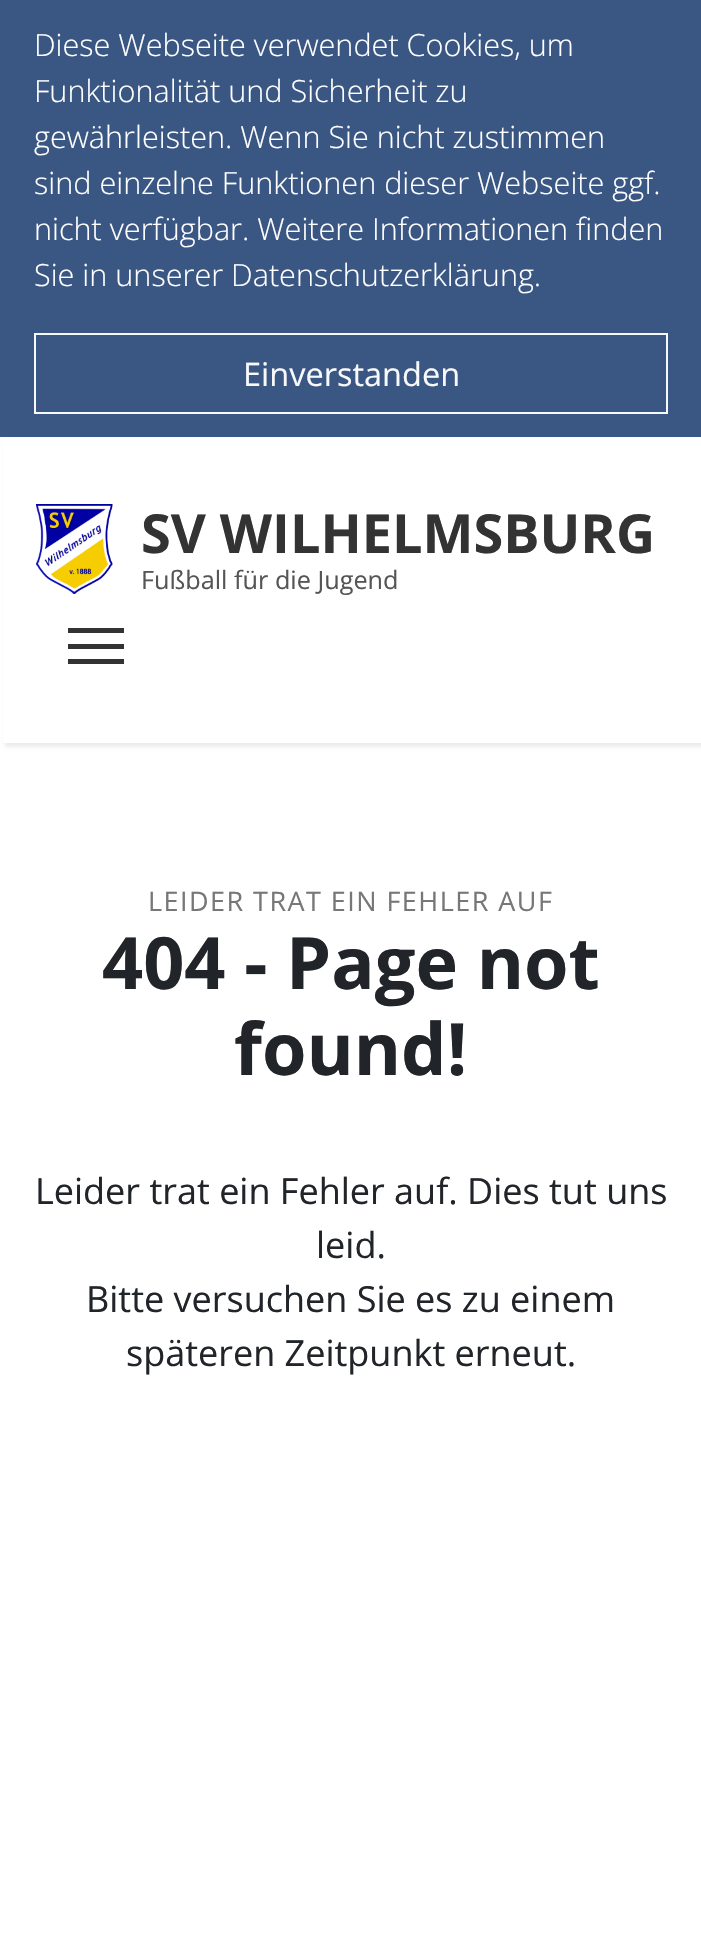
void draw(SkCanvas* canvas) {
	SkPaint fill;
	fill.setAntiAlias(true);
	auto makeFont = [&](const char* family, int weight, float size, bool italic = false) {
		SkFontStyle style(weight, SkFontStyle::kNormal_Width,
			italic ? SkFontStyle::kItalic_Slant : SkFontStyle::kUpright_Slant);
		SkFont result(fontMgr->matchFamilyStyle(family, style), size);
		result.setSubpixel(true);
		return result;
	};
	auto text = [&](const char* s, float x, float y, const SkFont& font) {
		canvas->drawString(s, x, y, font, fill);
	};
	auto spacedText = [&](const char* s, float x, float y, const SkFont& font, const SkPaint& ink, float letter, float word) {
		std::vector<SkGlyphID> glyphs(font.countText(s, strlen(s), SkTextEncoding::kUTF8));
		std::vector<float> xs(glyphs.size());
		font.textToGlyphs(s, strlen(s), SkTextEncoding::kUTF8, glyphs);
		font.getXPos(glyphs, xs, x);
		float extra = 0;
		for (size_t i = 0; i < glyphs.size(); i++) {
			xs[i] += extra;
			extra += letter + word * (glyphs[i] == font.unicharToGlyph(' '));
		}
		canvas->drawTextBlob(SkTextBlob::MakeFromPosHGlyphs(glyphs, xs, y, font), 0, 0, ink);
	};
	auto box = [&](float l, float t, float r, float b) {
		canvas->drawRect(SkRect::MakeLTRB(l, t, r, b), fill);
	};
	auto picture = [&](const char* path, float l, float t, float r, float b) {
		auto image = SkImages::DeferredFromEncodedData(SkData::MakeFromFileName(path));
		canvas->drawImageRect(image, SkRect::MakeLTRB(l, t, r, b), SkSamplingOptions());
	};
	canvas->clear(0xFFFFFFFF);
	fill.setColor(0xFF3A5683);
	box(0, 0, 701, 437);
	fill.setStyle(SkPaint::kStroke_Style);
	fill.setStrokeWidth(2);
	fill.setColor(0xFFF8F9FA);
	canvas->drawRect(SkRect::MakeLTRB(35, 334, 667, 413), fill);
	fill.setStyle(SkPaint::kFill_Style);
	fill.setColor(0x14000000);
	fill.setMaskFilter(SkMaskFilter::MakeBlur(kNormal_SkBlurStyle, 2));
	canvas->drawRect(SkRect::MakeLTRB(5, 441, 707, 747), fill);
	fill.setMaskFilter(nullptr);
	fill.setColor(0xFFFFFFFF);
	box(3, 439, 701, 743);
	picture("image0.png", 36, 504, 113, 594);
	fill.setColor(0xFF333333);
	box(68, 628, 124, 633);
	box(68, 644, 124, 649);
	box(68, 659, 124, 664);
	auto font1 = makeFont("Open Sans", 300, 30.6f);
	fill.setColor(0xFFFFFFFF);
	text("Diese Webseite verwendet Cookies, um", 34, 56, font1);
	text("Funktionalität und Sicherheit zu", 34, 102, font1);
	text("gewährleisten. Wenn Sie nicht zustimmen", 34, 148, font1);
	text("sind einzelne Funktionen dieser Webseite ggf.", 34, 194, font1);
	text("nicht verfügbar. Weitere Informationen finden", 34, 240, font1);
	text("Sie in unserer Datenschutzerklärung.", 34, 286, font1);
	auto font2 = makeFont("Open Sans", 400, 32.5f);
	fill.setColor(0xFFF8F9FA);
	text("Einverstanden", 243, 386, font2);
	auto font3 = makeFont("Open Sans", 700, 54);
	fill.setColor(0xFF333333);
	text("SV WILHELMSBURG", 141, 553, font3);
	auto font4 = makeFont("Open Sans", 400, 25.25f);
	fill.setColor(0xFF555555);
	text("Fußball für die Jugend", 141, 589, font4);
	auto font5 = makeFont("Open Sans", 400, 27);
	fill.setColor(0xFF777777);
	spacedText("LEIDER TRAT EIN FEHLER AUF", 148, 911, font5, fill, 1.45f, 0);
	auto font6 = makeFont("Open Sans", 700, 72);
	fill.setColor(0xFF212529);
	text("404 - Page not", 102, 989, font6);
	text("found!", 234, 1075, font6);
	auto font7 = makeFont("Open Sans", 400, 36);
	text("Leider trat ein Fehler auf. Dies tut uns", 35, 1204, font7);
	text("leid.", 316, 1258, font7);
	text("Bitte versuchen Sie es zu einem", 86, 1312, font7);
	text("späteren Zeitpunkt erneut.", 126, 1366, font7);
}
